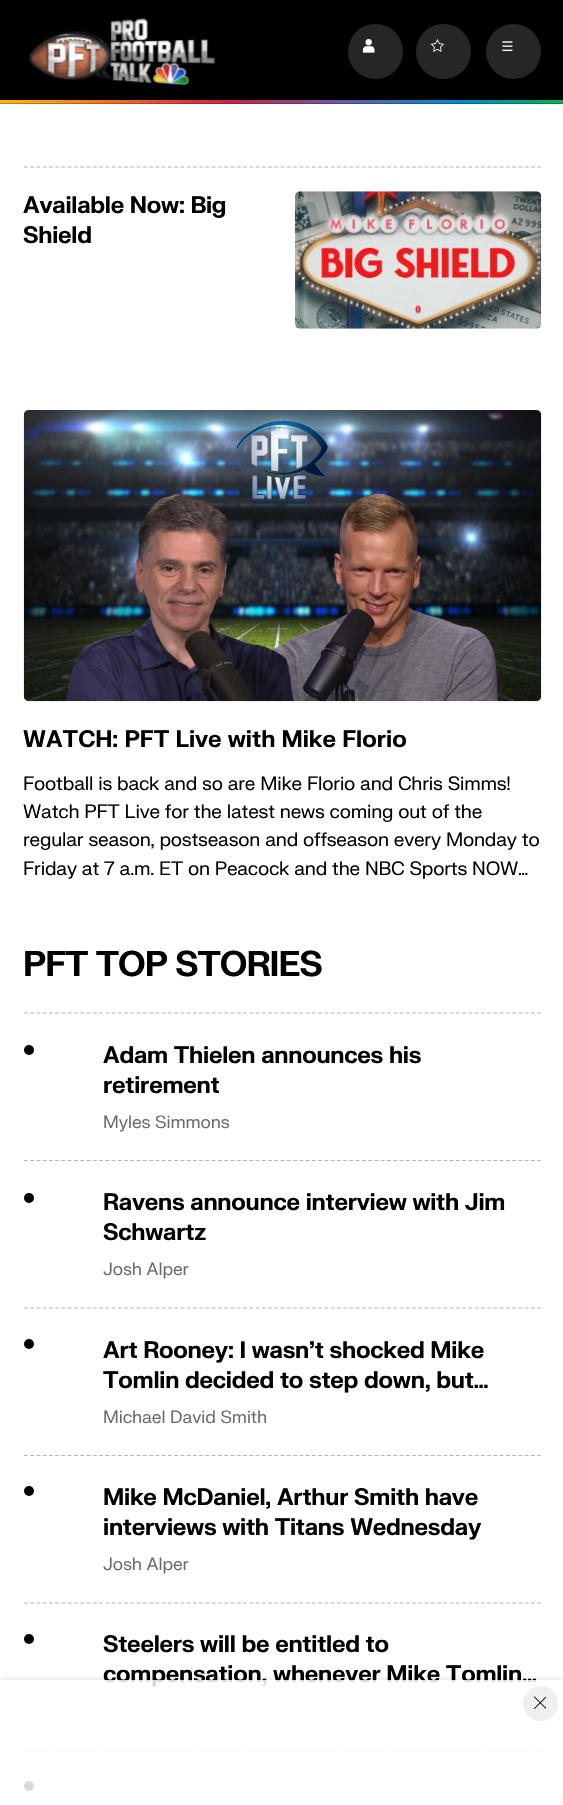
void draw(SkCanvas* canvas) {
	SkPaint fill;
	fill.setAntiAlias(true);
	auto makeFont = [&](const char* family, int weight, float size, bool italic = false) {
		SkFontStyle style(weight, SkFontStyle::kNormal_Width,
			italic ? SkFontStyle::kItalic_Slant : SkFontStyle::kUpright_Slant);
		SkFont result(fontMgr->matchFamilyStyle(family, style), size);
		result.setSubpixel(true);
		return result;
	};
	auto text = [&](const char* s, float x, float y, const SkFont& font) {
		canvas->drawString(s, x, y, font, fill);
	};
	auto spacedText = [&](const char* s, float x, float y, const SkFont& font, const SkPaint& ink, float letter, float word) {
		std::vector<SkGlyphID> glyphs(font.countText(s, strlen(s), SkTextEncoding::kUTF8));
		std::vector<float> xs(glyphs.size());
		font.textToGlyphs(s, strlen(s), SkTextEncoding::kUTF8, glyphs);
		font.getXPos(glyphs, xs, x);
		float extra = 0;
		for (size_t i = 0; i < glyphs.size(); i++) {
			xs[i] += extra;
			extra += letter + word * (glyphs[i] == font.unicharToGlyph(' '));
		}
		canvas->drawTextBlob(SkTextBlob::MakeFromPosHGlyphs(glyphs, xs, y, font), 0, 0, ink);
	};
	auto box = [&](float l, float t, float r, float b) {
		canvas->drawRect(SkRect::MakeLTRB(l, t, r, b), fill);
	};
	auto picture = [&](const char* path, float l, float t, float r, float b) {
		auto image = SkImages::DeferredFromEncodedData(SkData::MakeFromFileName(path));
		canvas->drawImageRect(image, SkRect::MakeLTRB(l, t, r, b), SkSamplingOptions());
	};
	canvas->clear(0xFFFFFFFF);
	fill.setColor(0xFF000000);
	box(0, 0, 563, 104);
	picture("image0.png", 28, 18, 216, 86);
	fill.setColor(0xFF262626);
	canvas->drawCircle(375.5f, 51.5f, 27.5f, fill);
	picture("image1.png", 362, 39, 375, 53);
	canvas->drawCircle(443.5f, 51.5f, 27.5f, fill);
	picture("image2.png", 430, 39, 445, 52);
	canvas->drawCircle(513.5f, 51.5f, 27.5f, fill);
	picture("image3.png", 502, 41, 513, 52);
	picture("image4.png", 0, 100, 563, 104);
	fill.setStyle(SkPaint::kStroke_Style);
	fill.setStrokeWidth(1.2f);
	fill.setColor(0xFFB3B3B3);
	fill.setPathEffect(SkDashPathEffect::Make({{3.75f, 2.51f}}, 0));
	canvas->drawPath(SkPathBuilder().moveTo(24, 167).lineTo(541, 167).detach(), fill);
	fill.setPathEffect(nullptr);
	picture("image5.png", 295, 191, 542, 329);
	picture("image6.png", 23, 410, 542, 702);
	fill.setPathEffect(SkDashPathEffect::Make({{3.75f, 2.51f}}, 0));
	canvas->drawPath(SkPathBuilder().moveTo(24, 1013).lineTo(541, 1013).detach(), fill);
	fill.setPathEffect(nullptr);
	fill.setStyle(SkPaint::kFill_Style);
	fill.setColor(0xFF000000);
	canvas->drawCircle(29, 1050, 5, fill);
	fill.setStyle(SkPaint::kStroke_Style);
	fill.setColor(0xFFB3B3B3);
	fill.setPathEffect(SkDashPathEffect::Make({{3.75f, 2.51f}}, 0));
	canvas->drawPath(SkPathBuilder().moveTo(24, 1160.5f).lineTo(541, 1160.5f).detach(), fill);
	fill.setPathEffect(nullptr);
	fill.setStyle(SkPaint::kFill_Style);
	fill.setColor(0xFF000000);
	canvas->drawCircle(29, 1198, 5, fill);
	fill.setStyle(SkPaint::kStroke_Style);
	fill.setColor(0xFFB3B3B3);
	fill.setPathEffect(SkDashPathEffect::Make({{3.75f, 2.51f}}, 0));
	canvas->drawPath(SkPathBuilder().moveTo(24, 1308).lineTo(541, 1308).detach(), fill);
	fill.setPathEffect(nullptr);
	fill.setStyle(SkPaint::kFill_Style);
	fill.setColor(0xFF000000);
	canvas->drawCircle(29, 1344, 5, fill);
	fill.setStyle(SkPaint::kStroke_Style);
	fill.setColor(0xFFB3B3B3);
	fill.setPathEffect(SkDashPathEffect::Make({{3.75f, 2.51f}}, 0));
	canvas->drawPath(SkPathBuilder().moveTo(24, 1455.5f).lineTo(541, 1455.5f).detach(), fill);
	fill.setPathEffect(nullptr);
	fill.setStyle(SkPaint::kFill_Style);
	fill.setColor(0xFF000000);
	canvas->drawCircle(29, 1491, 5, fill);
	fill.setStyle(SkPaint::kStroke_Style);
	fill.setColor(0xFFB3B3B3);
	fill.setPathEffect(SkDashPathEffect::Make({{3.75f, 2.51f}}, 0));
	canvas->drawPath(SkPathBuilder().moveTo(24, 1603).lineTo(541, 1603).detach(), fill);
	fill.setPathEffect(nullptr);
	fill.setStyle(SkPaint::kFill_Style);
	fill.setColor(0xFF000000);
	canvas->drawCircle(29, 1639, 5, fill);
	fill.setStyle(SkPaint::kStroke_Style);
	fill.setColor(0xFFB3B3B3);
	fill.setPathEffect(SkDashPathEffect::Make({{3.75f, 2.51f}}, 0));
	canvas->drawPath(SkPathBuilder().moveTo(24, 1750.5f).lineTo(541, 1750.5f).detach(), fill);
	fill.setPathEffect(nullptr);
	fill.setStyle(SkPaint::kFill_Style);
	fill.setColor(0xFF000000);
	canvas->drawCircle(29, 1786, 5, fill);
	canvas->save();
	canvas->clipRect(SkRect::MakeLTRB(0, 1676, 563, 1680));
	fill.setColor(0x14000000);
	fill.setMaskFilter(SkMaskFilter::MakeBlur(kNormal_SkBlurStyle, 2.5f));
	canvas->drawRect(SkRect::MakeLTRB(0, 1678, 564, 1803), fill);
	fill.setMaskFilter(nullptr);
	canvas->restore();
	auto font1 = makeFont("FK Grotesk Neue", 700, 23.1f);
	fill.setColor(0xFF000000);
	spacedText("Available Now: Big", 23, 213, font1, fill, -0.25f, 0);
	spacedText("Shield", 23, 243, font1, fill, -0.25f, 0);
	text("WATCH: PFT Live with Mike Florio", 23, 747, font1);
	auto font2 = makeFont("FK Grotesk Neue", 400, 18.8f);
	spacedText("Football is back and so are Mike Florio and Chris Simms!", 23, 790, font2, fill, -0.2f, 0);
	spacedText("Watch PFT Live for the latest news coming out of the", 23, 818, font2, fill, -0.2f, 0);
	spacedText("regular season, postseason and offseason every Monday to", 23, 846, font2, fill, -0.2f, 0);
	spacedText("Friday at 7 a.m. ET on Peacock and the NBC Sports NOW…", 23, 875, font2, fill, -0.2f, 0);
	auto font3 = makeFont("FK Grotesk Neue", 700, 34.75f);
	spacedText("PFT TOP STORIES", 23, 976, font3, fill, -1, 0);
	spacedText("Adam Thielen announces his", 103, 1063, font1, fill, -0.25f, 0);
	spacedText("retirement", 103, 1093, font1, fill, -0.25f, 0);
	auto font4 = makeFont("FK Grotesk Neue", 400, 17.25f);
	fill.setColor(0xFF6A6A6A);
	spacedText("Myles Simmons", 103, 1128, font4, fill, -0.1f, 0);
	fill.setColor(0xFF000000);
	spacedText("Ravens announce interview with Jim", 103, 1210, font1, fill, -0.25f, 0);
	spacedText("Schwartz", 103, 1240, font1, fill, -0.25f, 0);
	fill.setColor(0xFF6A6A6A);
	spacedText("Josh Alper", 103, 1275, font4, fill, -0.1f, 0);
	fill.setColor(0xFF000000);
	spacedText("Art Rooney: I wasn’t shocked Mike", 103, 1358, font1, fill, -0.25f, 0);
	spacedText("Tomlin decided to step down, but…", 103, 1388, font1, fill, -0.25f, 0);
	fill.setColor(0xFF6A6A6A);
	spacedText("Michael David Smith", 103, 1423, font4, fill, -0.1f, 0);
	fill.setColor(0xFF000000);
	spacedText("Mike McDaniel, Arthur Smith have", 103, 1505, font1, fill, -0.25f, 0);
	spacedText("interviews with Titans Wednesday", 103, 1535, font1, fill, -0.25f, 0);
	fill.setColor(0xFF6A6A6A);
	spacedText("Josh Alper", 103, 1570, font4, fill, -0.1f, 0);
	fill.setColor(0xFF000000);
	spacedText("Steelers will be entitled to", 103, 1652, font1, fill, -0.25f, 0);
	spacedText("compensation, whenever Mike Tomlin…", 103, 1682, font1, fill, -0.25f, 0);
	fill.setColor(0xD9FFFFFF);
	box(24, 1680, 541, 1791);
	fill.setColor(0xFFEFEFEF);
	canvas->drawCircle(540.5f, 1703.5f, 17.5f, fill);
	picture("image7.png", 534, 1696, 546, 1709);
}
